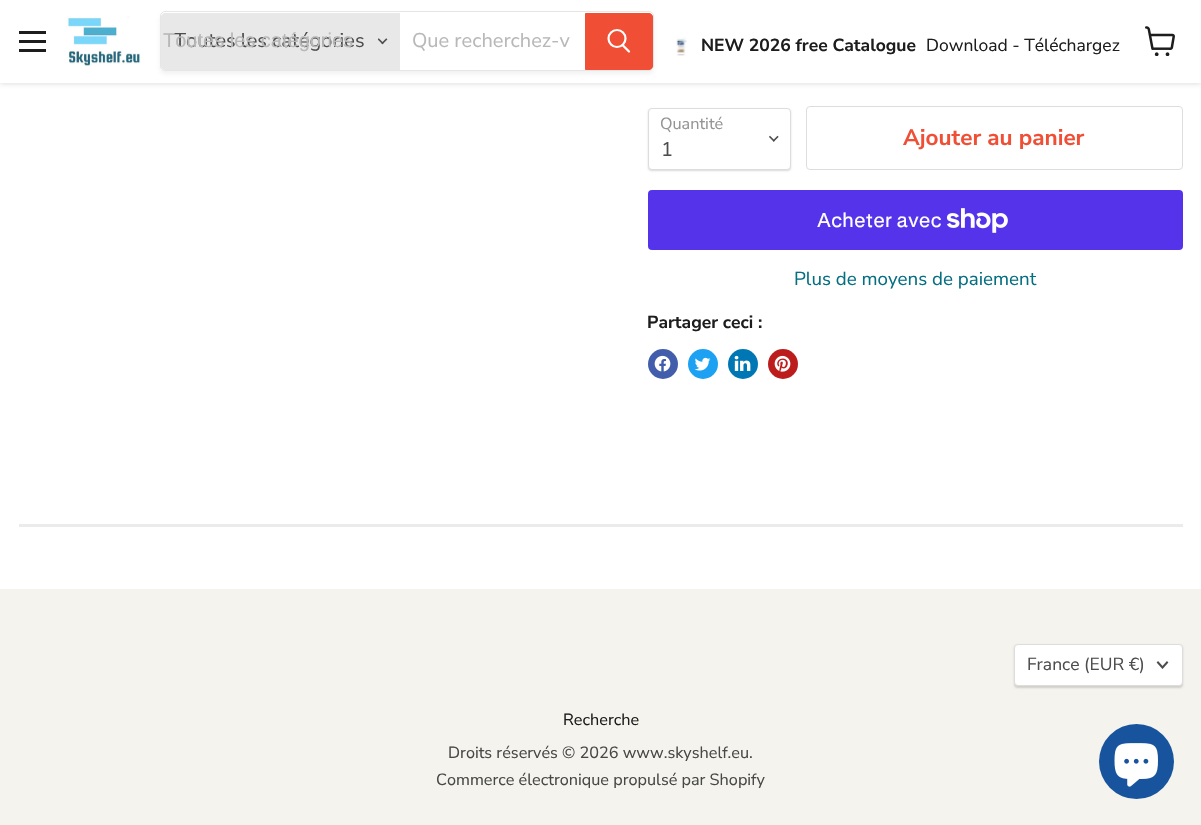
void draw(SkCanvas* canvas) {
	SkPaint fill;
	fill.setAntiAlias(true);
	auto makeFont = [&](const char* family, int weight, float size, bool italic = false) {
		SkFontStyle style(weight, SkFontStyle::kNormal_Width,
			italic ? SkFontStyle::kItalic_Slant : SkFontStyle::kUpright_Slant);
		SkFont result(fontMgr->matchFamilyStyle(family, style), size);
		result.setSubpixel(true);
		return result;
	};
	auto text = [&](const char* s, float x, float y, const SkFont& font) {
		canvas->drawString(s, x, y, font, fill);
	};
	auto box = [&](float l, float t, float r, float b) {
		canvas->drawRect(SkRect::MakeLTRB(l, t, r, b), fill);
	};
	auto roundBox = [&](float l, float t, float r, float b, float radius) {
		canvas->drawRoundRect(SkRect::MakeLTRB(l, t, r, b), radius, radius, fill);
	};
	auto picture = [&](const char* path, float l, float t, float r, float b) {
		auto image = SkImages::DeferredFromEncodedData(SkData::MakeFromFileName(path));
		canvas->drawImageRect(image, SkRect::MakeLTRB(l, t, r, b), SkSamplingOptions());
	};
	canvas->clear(0xFFFFFFFF);
	fill.setColor(0x40808080);
	fill.setMaskFilter(SkMaskFilter::MakeBlur(kNormal_SkBlurStyle, 2.5f));
	canvas->drawRect(SkRect::MakeLTRB(0, 1, 1201, 84), fill);
	fill.setMaskFilter(nullptr);
	fill.setColor(0xFFFFFFFF);
	box(0, 0, 1201, 83);
	fill.setColor(0xFF1D1D1D);
	box(19, 31, 46, 34);
	box(19, 40, 46, 43);
	box(19, 49, 46, 52);
	picture("image0.png", 66, 16, 141, 66);
	canvas->save();
	canvas->clipPath(SkPathBuilder(SkPathFillType::kEvenOdd).moveTo(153, 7).lineTo(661, 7).lineTo(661, 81).lineTo(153, 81).close().moveTo(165, 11).lineTo(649, 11).cubicTo(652, 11, 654, 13, 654, 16).lineTo(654, 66).cubicTo(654, 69, 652, 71, 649, 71).lineTo(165, 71).cubicTo(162, 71, 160, 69, 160, 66).lineTo(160, 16).cubicTo(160, 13, 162, 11, 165, 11).close().detach(), true);
	fill.setColor(0x1C808080);
	fill.setMaskFilter(SkMaskFilter::MakeBlur(kNormal_SkBlurStyle, 2));
	canvas->drawRoundRect(SkRect::MakeLTRB(160, 14, 654, 74), 5, 5, fill);
	fill.setMaskFilter(nullptr);
	canvas->restore();
	fill.setStyle(SkPaint::kStroke_Style);
	fill.setStrokeWidth(1);
	fill.setColor(0x33808080);
	canvas->drawRoundRect(SkRect::MakeLTRB(160.5f, 11.5f, 653.5f, 70.5f), 4.5f, 4.5f, fill);
	fill.setStyle(SkPaint::kFill_Style);
	fill.setColor(0xFFE8E8E8);
	canvas->drawPath(SkPathBuilder().moveTo(165, 13).lineTo(400, 13).lineTo(400, 70).lineTo(165, 70).cubicTo(163, 70, 161, 68, 161, 66).lineTo(161, 17).cubicTo(161, 15, 163, 13, 165, 13).close().detach(), fill);
	picture("image1.png", 378, 38, 388, 45);
	fill.setColor(0xFFF04F36);
	canvas->drawPath(SkPathBuilder().moveTo(585.5f, 13.5f).lineTo(649, 13.5f).cubicTo(651, 13.5f, 652.5f, 15, 652.5f, 17).lineTo(652.5f, 66).cubicTo(652.5f, 68, 651, 69.5f, 649, 69.5f).lineTo(585.5f, 69.5f).close().detach(), fill);
	fill.setStyle(SkPaint::kStroke_Style);
	canvas->drawPath(SkPathBuilder().moveTo(585.5f, 13.5f).lineTo(649, 13.5f).cubicTo(651, 13.5f, 652.5f, 15, 652.5f, 17).lineTo(652.5f, 66).cubicTo(652.5f, 68, 651, 69.5f, 649, 69.5f).lineTo(585.5f, 69.5f).close().detach(), fill);
	fill.setStrokeWidth(2.2f);
	fill.setStrokeCap(SkPaint::kRound_Cap);
	fill.setColor(0xFFFFFFFF);
	canvas->drawPath(SkPathBuilder().moveTo(629, 51.5f).lineTo(623, 45.5f).detach(), fill);
	fill.setStrokeCap(SkPaint::kButt_Cap);
	canvas->drawCircle(617, 38.5f, 8.5f, fill);
	picture("image2.png", 676, 37, 687, 56);
	picture("image3.png", 1145, 26, 1175, 56);
	fill.setStyle(SkPaint::kFill_Style);
	fill.setColor(0x26000000);
	fill.setMaskFilter(SkMaskFilter::MakeBlur(kNormal_SkBlurStyle, 1));
	canvas->drawRoundRect(SkRect::MakeLTRB(648, 109, 791, 171), 4, 4, fill);
	fill.setMaskFilter(nullptr);
	fill.setColor(0xFFFFFFFF);
	canvas->drawRoundRect(SkRect::MakeLTRB(648.5f, 108.5f, 790.5f, 169.5f), 3.5f, 3.5f, fill);
	fill.setStyle(SkPaint::kStroke_Style);
	fill.setStrokeWidth(1);
	fill.setColor(0xFFDDDDDD);
	canvas->drawRoundRect(SkRect::MakeLTRB(648.5f, 108.5f, 790.5f, 169.5f), 3.5f, 3.5f, fill);
	picture("image4.png", 769, 135, 779, 142);
	canvas->drawRoundRect(SkRect::MakeLTRB(806.5f, 106.5f, 1182.5f, 169.5f), 3.5f, 3.5f, fill);
	fill.setStyle(SkPaint::kFill_Style);
	fill.setColor(0xFF5433EB);
	roundBox(648, 190, 1183, 250, 4);
	picture("image5.png", 946, 208, 1008, 233);
	fill.setColor(0xFF425DAB);
	canvas->drawCircle(663, 364, 15, fill);
	picture("image6.png", 654, 355, 671, 372);
	fill.setColor(0xFF1DA1F2);
	canvas->drawCircle(703, 364, 15, fill);
	picture("image7.png", 694, 357, 711, 371);
	fill.setColor(0xFF0077B5);
	canvas->drawCircle(743, 364, 15, fill);
	picture("image8.png", 734, 355, 751, 371);
	fill.setColor(0xFFBD1C1C);
	canvas->drawCircle(783, 364, 15, fill);
	picture("image9.png", 774, 355, 791, 372);
	fill.setColor(0x29808080);
	box(19, 524, 1183, 527);
	fill.setColor(0xFFF5F3ED);
	box(0, 589, 1201, 825);
	fill.setColor(0x26000000);
	fill.setMaskFilter(SkMaskFilter::MakeBlur(kNormal_SkBlurStyle, 1));
	canvas->drawRoundRect(SkRect::MakeLTRB(1014, 645, 1183, 688), 4, 4, fill);
	fill.setMaskFilter(nullptr);
	fill.setColor(0xFFFFFFFF);
	canvas->drawRoundRect(SkRect::MakeLTRB(1014.5f, 644.5f, 1182.5f, 685.5f), 3.5f, 3.5f, fill);
	fill.setStyle(SkPaint::kStroke_Style);
	fill.setColor(0xFFDDDDDD);
	canvas->drawRoundRect(SkRect::MakeLTRB(1014.5f, 644.5f, 1182.5f, 685.5f), 3.5f, 3.5f, fill);
	fill.setStrokeWidth(2);
	fill.setStrokeCap(SkPaint::kSquare_Cap);
	fill.setColor(0xFF4D4D4D);
	canvas->drawPath(SkPathBuilder().moveTo(1162.5f, 667.5f).lineTo(1167, 662.5f).moveTo(1162.5f, 667.5f).lineTo(1158, 662.5f).detach(), fill);
	fill.setStyle(SkPaint::kFill_Style);
	fill.setColor(0xFF18549D);
	canvas->drawCircle(1136.5f, 761.5f, 37.5f, fill);
	picture("image10.png", 1114, 743, 1158, 787);
	auto font1 = makeFont("Nunito Sans", 400, 20);
	fill.setColor(0xFF4D4D4D);
	text("Toutes les catégories", 174, 47, font1);
	auto font2 = makeFont("Liberation Sans", 400, 20);
	fill.setColor(0xFFB8B8B8);
	text("Toutes les catégories", 163, 47, font2);
	text("Que recherchez-v", 412, 47, font1);
	auto font3 = makeFont("Nunito Sans", 700, 17.5f);
	fill.setColor(0xFF1D1D1D);
	text("NEW 2026 free Catalogue", 701, 51, font3);
	auto font4 = makeFont("Nunito Sans", 400, 17.5f);
	text("Download - Téléchargez", 926, 51, font4);
	auto font5 = makeFont("Nunito Sans", 400, 16.25f);
	fill.setColor(0xFF949494);
	text("Quantité", 660, 129, font5);
	fill.setColor(0xFF4D4D4D);
	text("1", 661, 156, font1);
	auto font6 = makeFont("Nunito Sans", 700, 22.5f);
	fill.setColor(0xFFF04F36);
	text("Ajouter au panier", 903, 145, font6);
	auto font7 = makeFont("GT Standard", 400, 20);
	fill.setColor(0xFFFFFFFF);
	text("Acheter avec", 817, 227, font7);
	auto font8 = makeFont("Nunito Sans", 400, 18.75f);
	fill.setColor(0xFF046E82);
	text("Plus de moyens de paiement", 794, 285, font8);
	fill.setColor(0xFF1D1D1D);
	text("Partager ceci :", 647, 328, font3);
	fill.setColor(0xFF4D4D4D);
	text("France (EUR €)", 1027, 670, font4);
	fill.setColor(0xFF1D1D1D);
	text("Recherche", 563, 725, font5);
	fill.setColor(0xFF484847);
	text("Droits réservés © 2026 www.skyshelf.eu.", 448, 758, font5);
	text("Commerce électronique propulsé par Shopify", 436, 785, font5);
}
